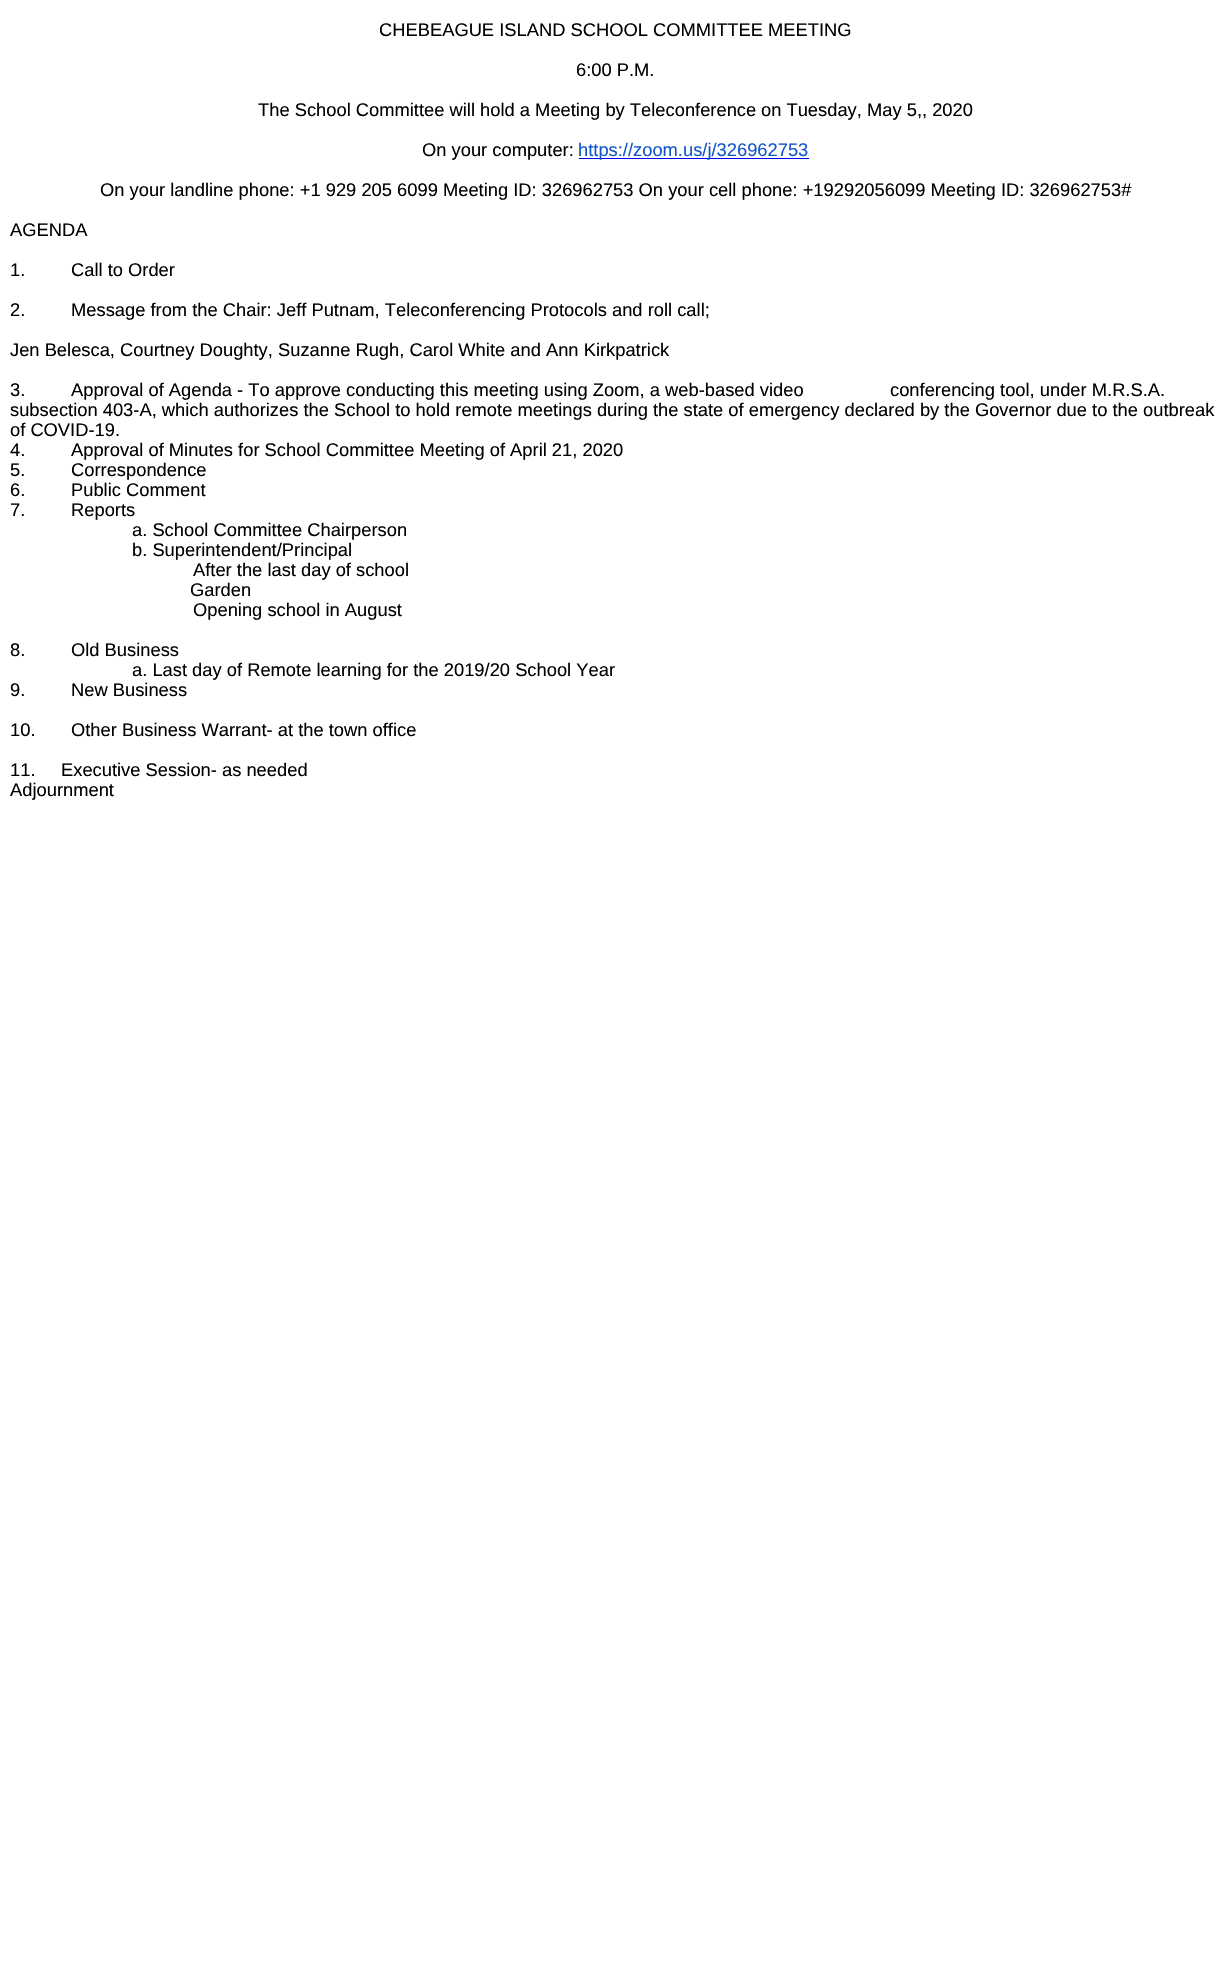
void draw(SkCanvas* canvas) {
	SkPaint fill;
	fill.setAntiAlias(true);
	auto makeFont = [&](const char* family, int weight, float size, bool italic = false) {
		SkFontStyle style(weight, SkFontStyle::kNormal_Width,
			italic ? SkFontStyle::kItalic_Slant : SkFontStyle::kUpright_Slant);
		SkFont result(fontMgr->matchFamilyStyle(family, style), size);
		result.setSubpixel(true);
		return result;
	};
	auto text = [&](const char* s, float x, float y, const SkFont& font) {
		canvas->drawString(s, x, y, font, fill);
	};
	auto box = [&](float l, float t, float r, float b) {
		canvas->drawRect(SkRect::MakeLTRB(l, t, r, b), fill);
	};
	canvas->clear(0xFFFFFFFF);
	fill.setColor(0xFF0000EE);
	box(579, 158, 809, 159);
	auto font1 = makeFont("Liberation Sans", 400, 18.33f);
	fill.setColor(0xFF000000);
	text("CHEBEAGUE ISLAND SCHOOL COMMITTEE MEETING", 379, 36, font1);
	text("6:00 P.M.", 576, 76, font1);
	text("The School Committee will hold a Meeting by Teleconference", 258, 116, font1);
	text("on Tuesday, May 5,, 2020", 761, 116, font1);
	text("On your computer:", 422, 156, font1);
	fill.setColor(0xFF1155CC);
	text("https://zoom.us/j/326962753", 578, 156, font1);
	fill.setColor(0xFF000000);
	text("On your landline phone: +1 929 205 6099 Meeting ID: 326962753 On your cell phone: +19292056099 Meeting ID: 326962753#", 100, 196, font1);
	text("AGENDA", 10, 236, font1);
	text("1.", 10, 276, font1);
	text("Call to Order", 71, 276, font1);
	text("2.", 10, 316, font1);
	text("Message from the Chair: Jeff Putnam, Teleconferencing Protocols and roll call;", 71, 316, font1);
	text("Jen Belesca, Courtney Doughty, Suzanne Rugh, Carol White and Ann Kirkpatrick", 10, 356, font1);
	text("3.", 10, 396, font1);
	text("Approval of Agenda - To approve conducting this meeting using Zoom, a web-based video", 71, 396, font1);
	text("conferencing tool, under M.R.S.A.", 890, 396, font1);
	text("subsection 403-A, which authorizes the School to hold remote meetings during the state of emergency declared by the Governor due to the outbreak", 10, 416, font1);
	text("of COVID-19.", 10, 436, font1);
	text("4.", 10, 456, font1);
	text("Approval of Minutes for School Committee Meeting of April 21, 2020", 71, 456, font1);
	text("5.", 10, 476, font1);
	text("Correspondence", 71, 476, font1);
	text("6.", 10, 496, font1);
	text("Public Comment", 71, 496, font1);
	text("7.", 10, 516, font1);
	text("Reports", 71, 516, font1);
	text("a. School Committee Chairperson", 132, 536, font1);
	text("b. Superintendent/Principal", 132, 556, font1);
	text("After the last day of school", 193, 576, font1);
	text("Garden", 190, 596, font1);
	text("Opening school in August", 193, 616, font1);
	text("8.", 10, 656, font1);
	text("Old Business", 71, 656, font1);
	text("a. Last day of Remote learning for the 2019/20 School Year", 132, 676, font1);
	text("9.", 10, 696, font1);
	text("New Business", 71, 696, font1);
	text("10.", 10, 736, font1);
	text("Other Business Warrant- at the town office", 71, 736, font1);
	text("11.", 10, 776, font1);
	text("Executive Session- as needed", 61, 776, font1);
	text("Adjournment", 10, 796, font1);
}
